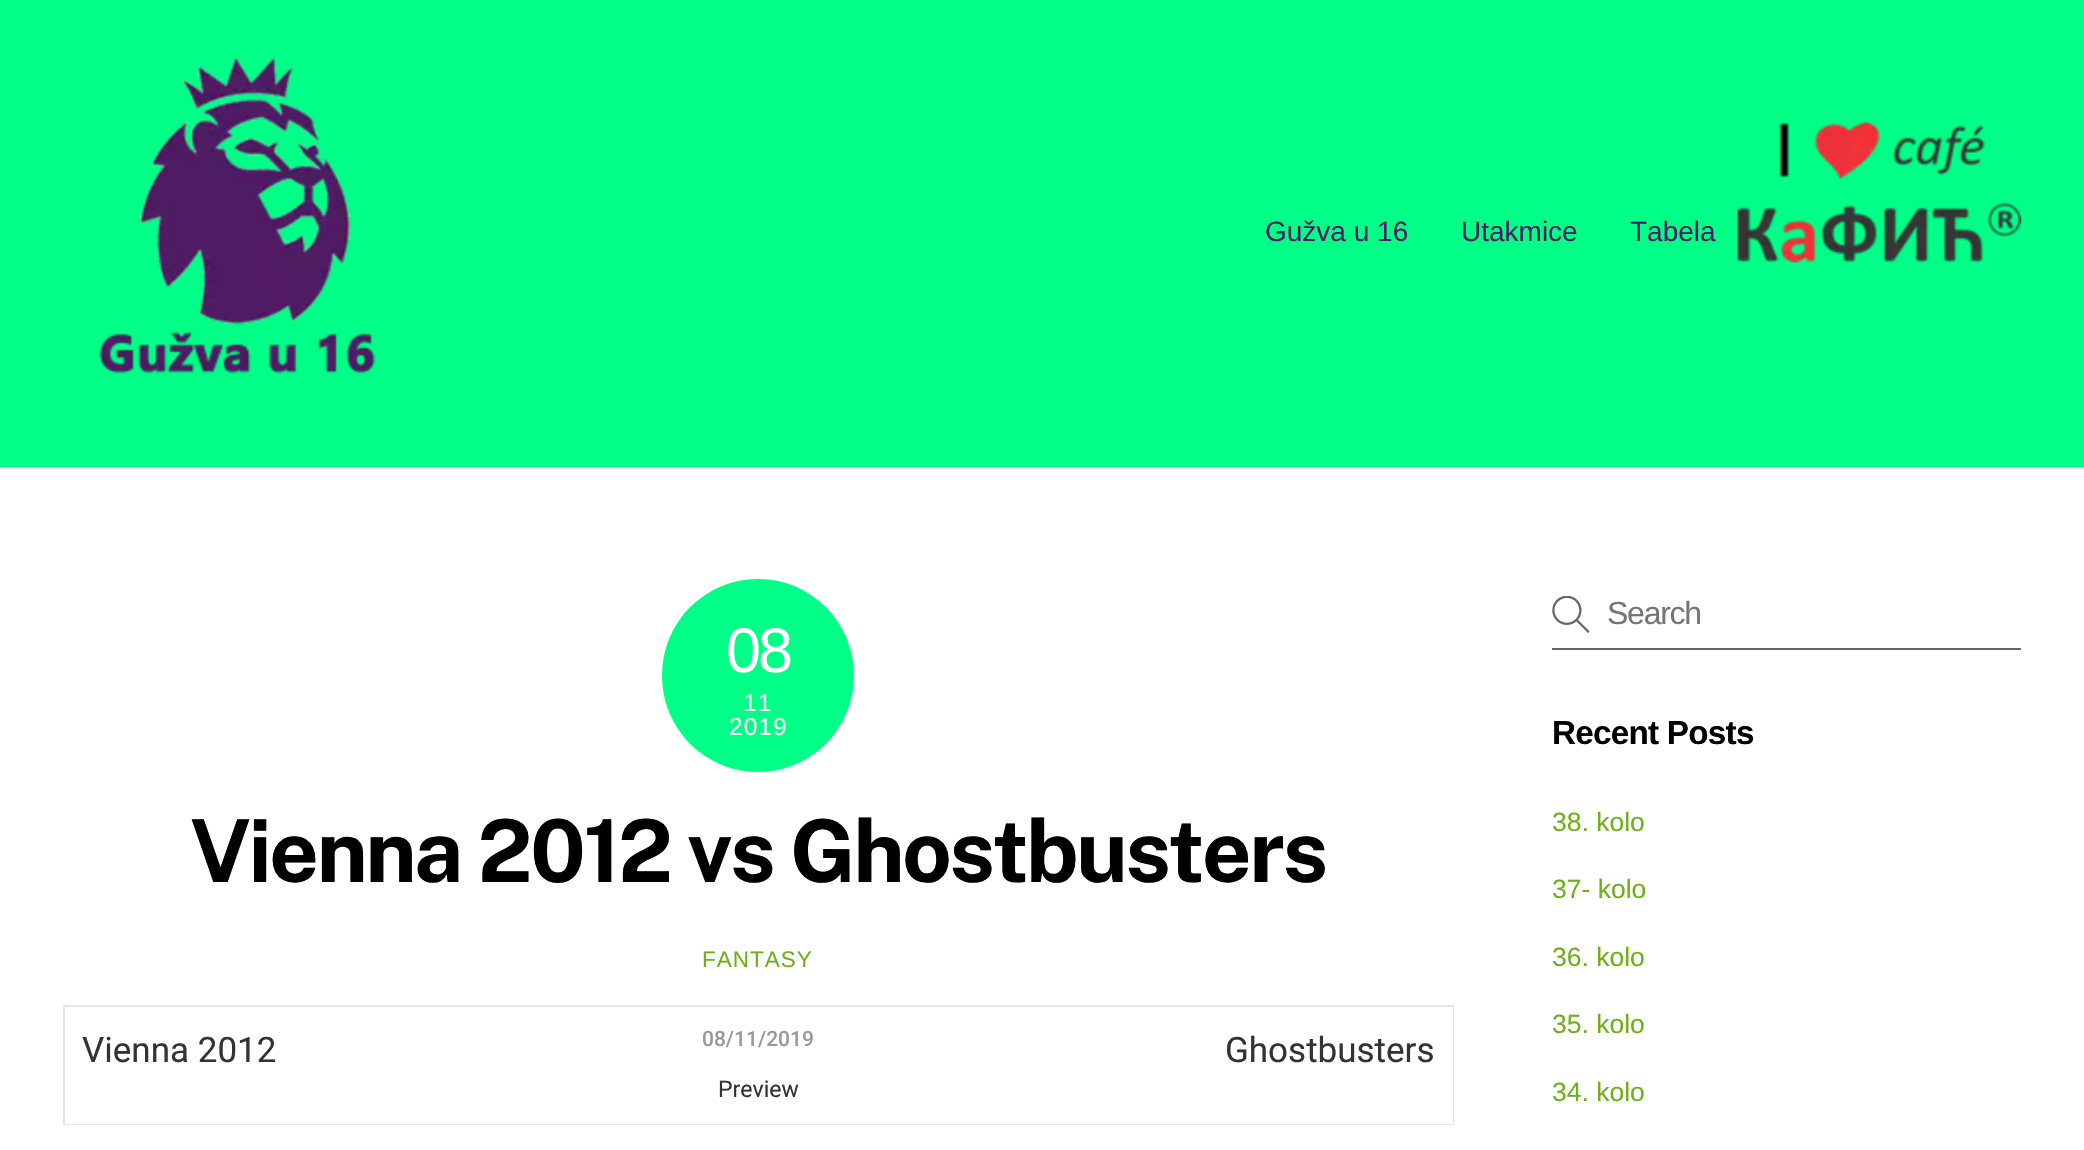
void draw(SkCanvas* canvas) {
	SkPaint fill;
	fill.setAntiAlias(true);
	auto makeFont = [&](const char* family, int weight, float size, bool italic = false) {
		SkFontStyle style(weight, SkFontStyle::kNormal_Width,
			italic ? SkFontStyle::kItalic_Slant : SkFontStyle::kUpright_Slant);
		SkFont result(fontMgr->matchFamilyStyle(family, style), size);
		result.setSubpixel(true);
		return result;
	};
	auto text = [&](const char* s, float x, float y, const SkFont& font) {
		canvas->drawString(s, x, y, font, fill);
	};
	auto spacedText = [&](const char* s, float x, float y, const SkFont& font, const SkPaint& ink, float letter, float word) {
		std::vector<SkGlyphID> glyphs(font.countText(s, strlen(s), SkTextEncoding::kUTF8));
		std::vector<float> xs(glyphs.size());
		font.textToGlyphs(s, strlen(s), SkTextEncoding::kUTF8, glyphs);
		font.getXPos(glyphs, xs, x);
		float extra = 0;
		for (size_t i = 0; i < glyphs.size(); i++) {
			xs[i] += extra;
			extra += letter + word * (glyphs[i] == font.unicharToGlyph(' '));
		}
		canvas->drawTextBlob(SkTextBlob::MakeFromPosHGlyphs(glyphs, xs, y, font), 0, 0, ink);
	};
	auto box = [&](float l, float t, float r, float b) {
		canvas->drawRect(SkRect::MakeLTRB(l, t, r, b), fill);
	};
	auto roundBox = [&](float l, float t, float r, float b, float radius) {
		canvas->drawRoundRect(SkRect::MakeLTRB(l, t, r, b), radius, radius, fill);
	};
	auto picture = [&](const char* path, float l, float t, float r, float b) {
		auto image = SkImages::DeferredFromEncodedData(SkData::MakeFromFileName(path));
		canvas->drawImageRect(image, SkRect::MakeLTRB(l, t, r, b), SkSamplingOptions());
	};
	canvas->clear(0xFFFFFFFF);
	fill.setColor(0xFFF2F2F2);
	box(0, 467, 2084, 468);
	fill.setColor(0xFF00FF87);
	box(0, 0, 2084, 466);
	fill.setColor(0xFF00F280);
	box(0, 466, 2084, 467);
	picture("image0.png", 99, 57, 376, 374);
	picture("image1.png", 1737, 121, 2022, 263);
	fill.setColor(0xFF00FF87);
	roundBox(662, 579, 854, 772, 96);
	fill.setColor(0xFFE5E5E5);
	box(63, 1005, 1454, 1007);
	box(1453, 1005, 1454, 1125);
	box(63, 1124, 1454, 1125);
	box(63, 1005, 65, 1125);
	fill.setColor(0xFF666666);
	box(1552, 648, 2021, 650);
	picture("image2.png", 1552, 596, 1590, 633);
	auto font1 = makeFont("Liberation Sans", 400, 28);
	fill.setColor(0xFF501C64);
	text("Gužva u 16", 1265, 241, font1);
	text("Utakmice", 1461, 241, font1);
	text("Tabela", 1630, 241, font1);
	auto font2 = makeFont("Liberation Sans", 400, 63);
	fill.setColor(0xFFFFFFFF);
	spacedText("08", 726, 672, font2, fill, -3, 0);
	auto font3 = makeFont("Liberation Sans", 400, 24.5f);
	spacedText("11", 743, 711, font3, fill, 1, 0);
	spacedText("2019", 729, 735, font3, fill, 1, 0);
	auto font4 = makeFont("Public Sans", 700, 86.75f);
	fill.setColor(0xFF000000);
	spacedText("Vienna 2012 vs Ghostbusters", 190, 882, font4, fill, -2.6f, 0);
	auto font5 = makeFont("Liberation Sans", 400, 22.5f);
	fill.setColor(0xFF6FAF18);
	spacedText("FANTASY", 702, 967, font5, fill, 1, 0);
	auto font6 = makeFont("Roboto", 400, 35);
	fill.setColor(0xFF333333);
	text("Vienna 2012", 82, 1062, font6);
	auto font7 = makeFont("Roboto", 500, 21);
	fill.setColor(0xFF999999);
	text("08/11/2019", 702, 1046, font7);
	fill.setColor(0xFF333333);
	text("Ghostbusters", 1225, 1062, font6);
	auto font8 = makeFont("Roboto", 400, 23);
	text("Preview", 718, 1097, font8);
	auto font9 = makeFont("Liberation Sans", 400, 32);
	fill.setColor(0xFF757575);
	spacedText("Search", 1607, 624, font9, fill, -1.25f, 0);
	auto font10 = makeFont("Liberation Sans", 700, 33.25f);
	fill.setColor(0xFF000000);
	spacedText("Recent Posts", 1552, 744, font10, fill, -0.75f, 0);
	auto font11 = makeFont("Liberation Sans", 400, 26.5f);
	fill.setColor(0xFF6FAF18);
	text("38. kolo", 1552, 831, font11);
	text("37- kolo", 1552, 898, font11);
	text("36. kolo", 1552, 966, font11);
	text("35. kolo", 1552, 1033, font11);
	text("34. kolo", 1552, 1101, font11);
}
